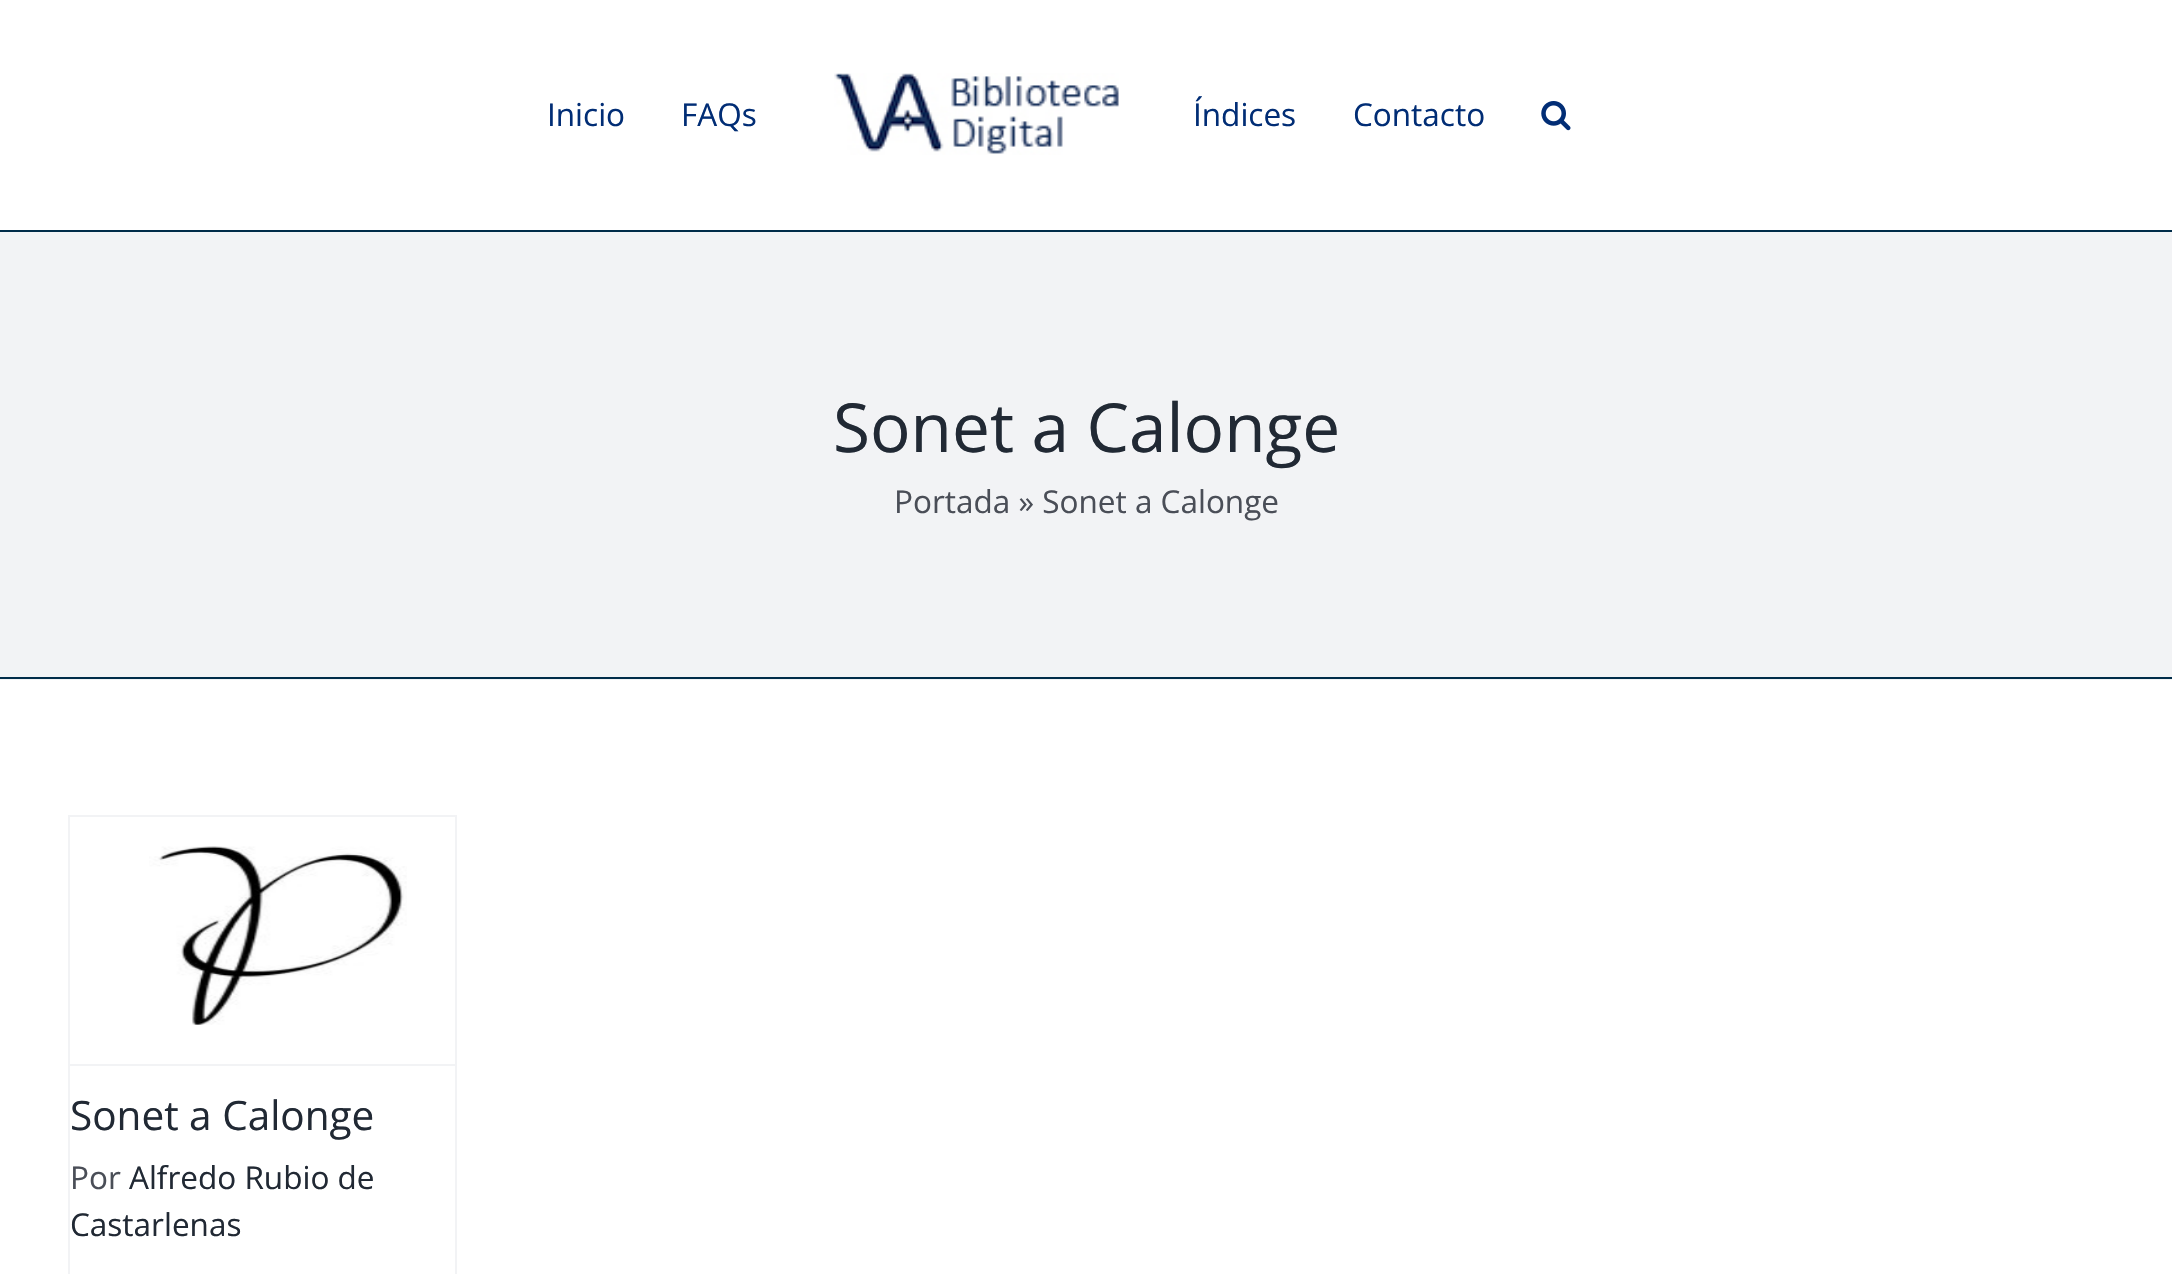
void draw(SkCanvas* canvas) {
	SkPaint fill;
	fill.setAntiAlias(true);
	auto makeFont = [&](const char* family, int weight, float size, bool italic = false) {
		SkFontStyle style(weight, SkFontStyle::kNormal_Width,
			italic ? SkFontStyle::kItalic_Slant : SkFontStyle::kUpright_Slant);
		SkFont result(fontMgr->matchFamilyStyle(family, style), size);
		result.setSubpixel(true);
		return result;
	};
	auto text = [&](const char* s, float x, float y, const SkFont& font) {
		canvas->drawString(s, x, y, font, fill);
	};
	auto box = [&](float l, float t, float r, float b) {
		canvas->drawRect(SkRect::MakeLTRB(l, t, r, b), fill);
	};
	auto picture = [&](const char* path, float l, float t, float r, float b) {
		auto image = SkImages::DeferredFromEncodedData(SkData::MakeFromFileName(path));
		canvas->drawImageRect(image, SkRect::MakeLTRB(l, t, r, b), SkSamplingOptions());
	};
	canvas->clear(0xFFFFFFFF);
	picture("image0.png", 834, 73, 1119, 155);
	picture("image1.png", 1541, 101, 1571, 131);
	fill.setColor(0xFFF2F3F5);
	box(0, 232, 2172, 680);
	fill.setColor(0xFF002C49);
	box(0, 230, 2172, 232);
	box(0, 677, 2172, 679);
	fill.setColor(0xFFF2F3F5);
	box(68, 815, 457, 817);
	box(455, 815, 457, 1274);
	box(68, 815, 70, 1274);
	box(70, 1064, 455, 1066);
	picture("image2.png", 149, 846, 407, 1025);
	auto font1 = makeFont("Open Sans", 400, 31.5f);
	fill.setColor(0xFF012D75);
	text("Inicio", 547, 126, font1);
	text("FAQs", 681, 126, font1);
	text("Índices", 1193, 126, font1);
	text("Contacto", 1353, 126, font1);
	auto font2 = makeFont("Open Sans", 400, 67.5f);
	fill.setColor(0xFF212934);
	text("Sonet a Calonge", 833, 452, font2);
	fill.setColor(0xFF4A4E57);
	text("Portada » Sonet a Calonge", 894, 513, font1);
	auto font3 = makeFont("Open Sans", 400, 40.5f);
	fill.setColor(0xFF212934);
	text("Sonet a Calonge", 70, 1130, font3);
	fill.setColor(0xFF4A4E57);
	text("Por", 70, 1189, font1);
	fill.setColor(0xFF212934);
	text("Alfredo Rubio de", 129, 1189, font1);
	text("Castarlenas", 70, 1236, font1);
}
